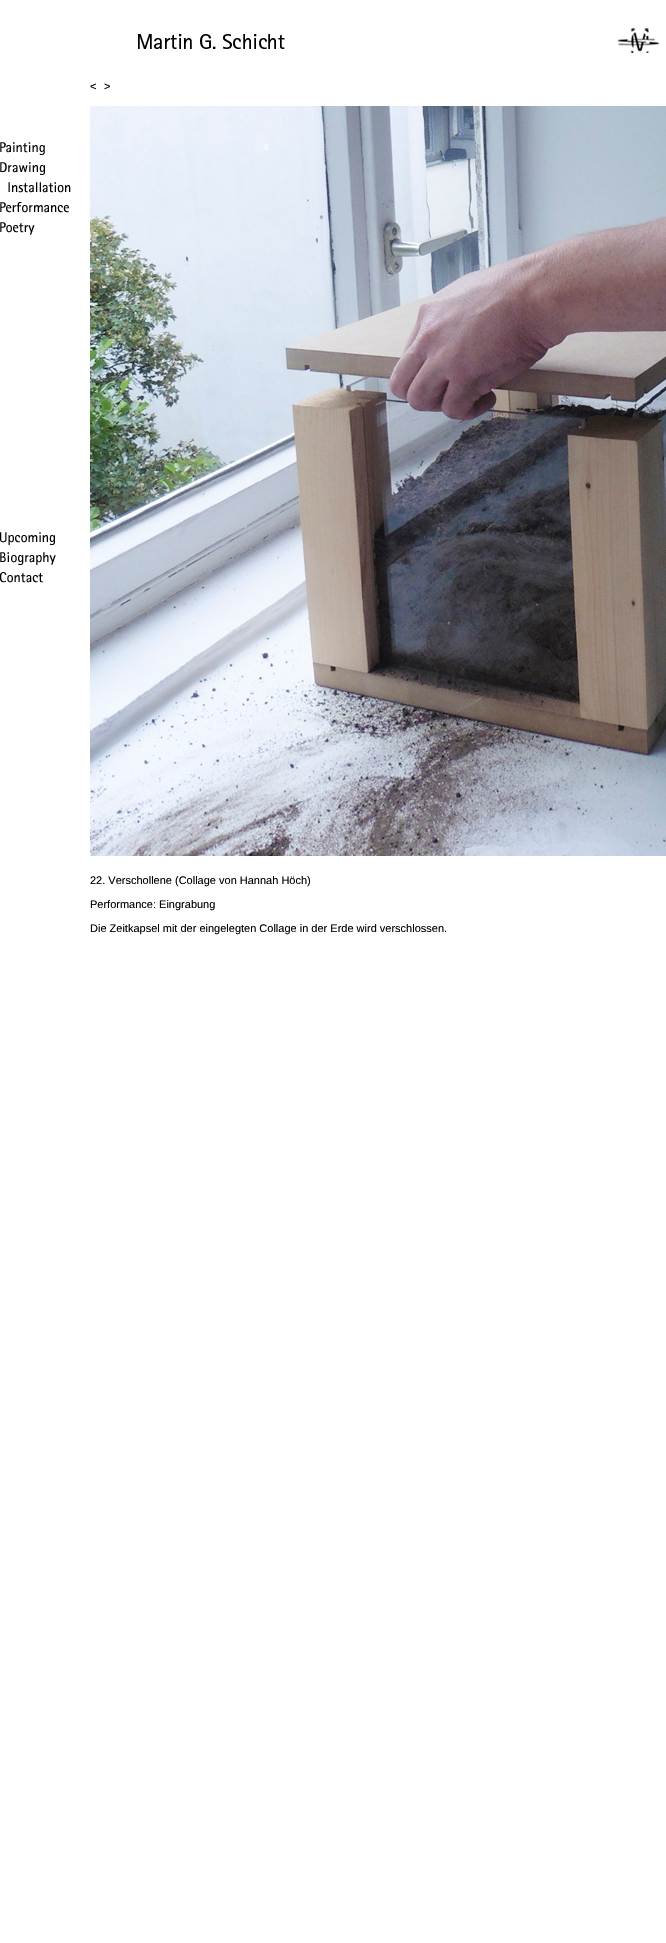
void draw(SkCanvas* canvas) {
	SkPaint fill;
	fill.setAntiAlias(true);
	auto makeFont = [&](const char* family, int weight, float size, bool italic = false) {
		SkFontStyle style(weight, SkFontStyle::kNormal_Width,
			italic ? SkFontStyle::kItalic_Slant : SkFontStyle::kUpright_Slant);
		SkFont result(fontMgr->matchFamilyStyle(family, style), size);
		result.setSubpixel(true);
		return result;
	};
	auto text = [&](const char* s, float x, float y, const SkFont& font) {
		canvas->drawString(s, x, y, font, fill);
	};
	auto picture = [&](const char* path, float l, float t, float r, float b) {
		auto image = SkImages::DeferredFromEncodedData(SkData::MakeFromFileName(path));
		canvas->drawImageRect(image, SkRect::MakeLTRB(l, t, r, b), SkSamplingOptions());
	};
	canvas->clear(0xFFFFFFFF);
	picture("image0.png", 138, 34, 285, 49);
	picture("image1.png", 618, 28, 659, 53);
	picture("image2.png", 0, 142, 45, 155);
	picture("image3.png", 0, 162, 45, 175);
	picture("image4.png", 8, 182, 71, 193);
	picture("image5.png", 0, 202, 69, 213);
	picture("image6.png", 0, 222, 35, 235);
	picture("image7.png", 0, 532, 55, 545);
	picture("image8.png", 0, 552, 56, 565);
	picture("image9.png", 0, 572, 43, 583);
	picture("image10.png", 90, 106, 666, 856);
	auto font1 = makeFont("Liberation Sans", 400, 11);
	fill.setColor(0xFF000000);
	text("<", 90, 90, font1);
	text(">", 104, 90, font1);
	text("22. Verschollene (Collage von Hannah Höch)", 90, 884, font1);
	text("Performance: Eingrabung", 90, 908, font1);
	text("Die Zeitkapsel mit der eingelegten Collage in der Erde wird verschlossen.", 90, 932, font1);
}
